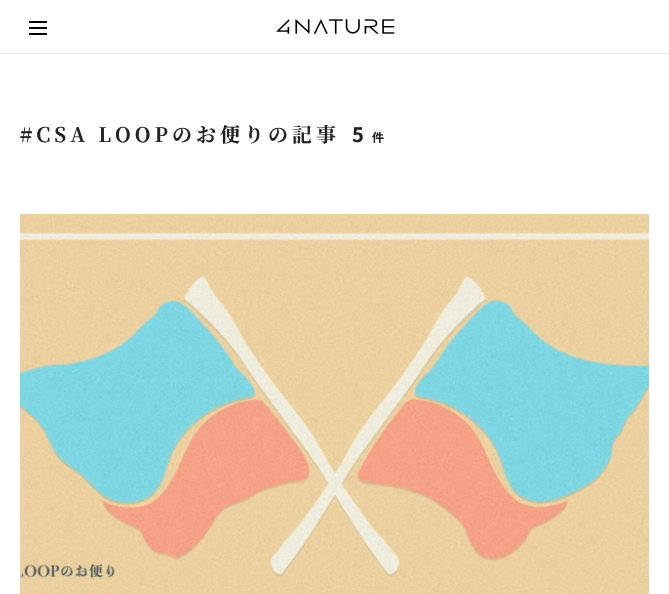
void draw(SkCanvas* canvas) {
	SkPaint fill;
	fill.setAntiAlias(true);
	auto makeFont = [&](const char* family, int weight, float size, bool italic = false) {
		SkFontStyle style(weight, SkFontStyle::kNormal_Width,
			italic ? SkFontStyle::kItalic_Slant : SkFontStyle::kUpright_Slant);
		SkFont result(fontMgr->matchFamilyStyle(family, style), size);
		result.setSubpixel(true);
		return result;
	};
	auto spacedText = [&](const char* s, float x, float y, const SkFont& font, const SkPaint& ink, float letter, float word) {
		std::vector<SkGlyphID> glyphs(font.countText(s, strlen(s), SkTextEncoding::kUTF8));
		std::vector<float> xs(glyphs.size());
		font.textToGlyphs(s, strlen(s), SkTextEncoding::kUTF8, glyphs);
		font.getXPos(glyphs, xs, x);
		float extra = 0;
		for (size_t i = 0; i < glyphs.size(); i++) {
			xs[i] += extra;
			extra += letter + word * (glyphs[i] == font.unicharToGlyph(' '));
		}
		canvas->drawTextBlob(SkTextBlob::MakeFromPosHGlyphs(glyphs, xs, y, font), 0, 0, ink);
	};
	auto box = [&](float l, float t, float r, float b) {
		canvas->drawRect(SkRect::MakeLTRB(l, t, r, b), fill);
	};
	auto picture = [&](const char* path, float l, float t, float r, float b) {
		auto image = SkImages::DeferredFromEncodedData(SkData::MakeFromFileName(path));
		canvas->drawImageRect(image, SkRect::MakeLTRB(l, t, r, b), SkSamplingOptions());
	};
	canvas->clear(0xFFFFFFFF);
	fill.setColor(0xFFEAEAEA);
	box(0, 53, 669, 54);
	fill.setColor(0xFF000000);
	box(29, 21, 47, 23);
	box(29, 27, 47, 29);
	box(29, 33, 47, 35);
	picture("image0.png", 276, 19, 395, 34);
	picture("image1.png", 20, 214, 649, 594);
	auto font1 = makeFont("Noto Serif JP", 700, 20);
	fill.setColor(0xFF232323);
	spacedText("#CSA LOOPのお便りの記事", 20, 142, font1, fill, 4, 0);
	auto font2 = makeFont("Noto Sans CJK JP", 700, 20);
	spacedText("5", 352, 142, font2, fill, 2, 0);
	auto font3 = makeFont("Noto Sans CJK JP", 700, 12);
	spacedText("件", 372, 142, font3, fill, 2, 0);
}
